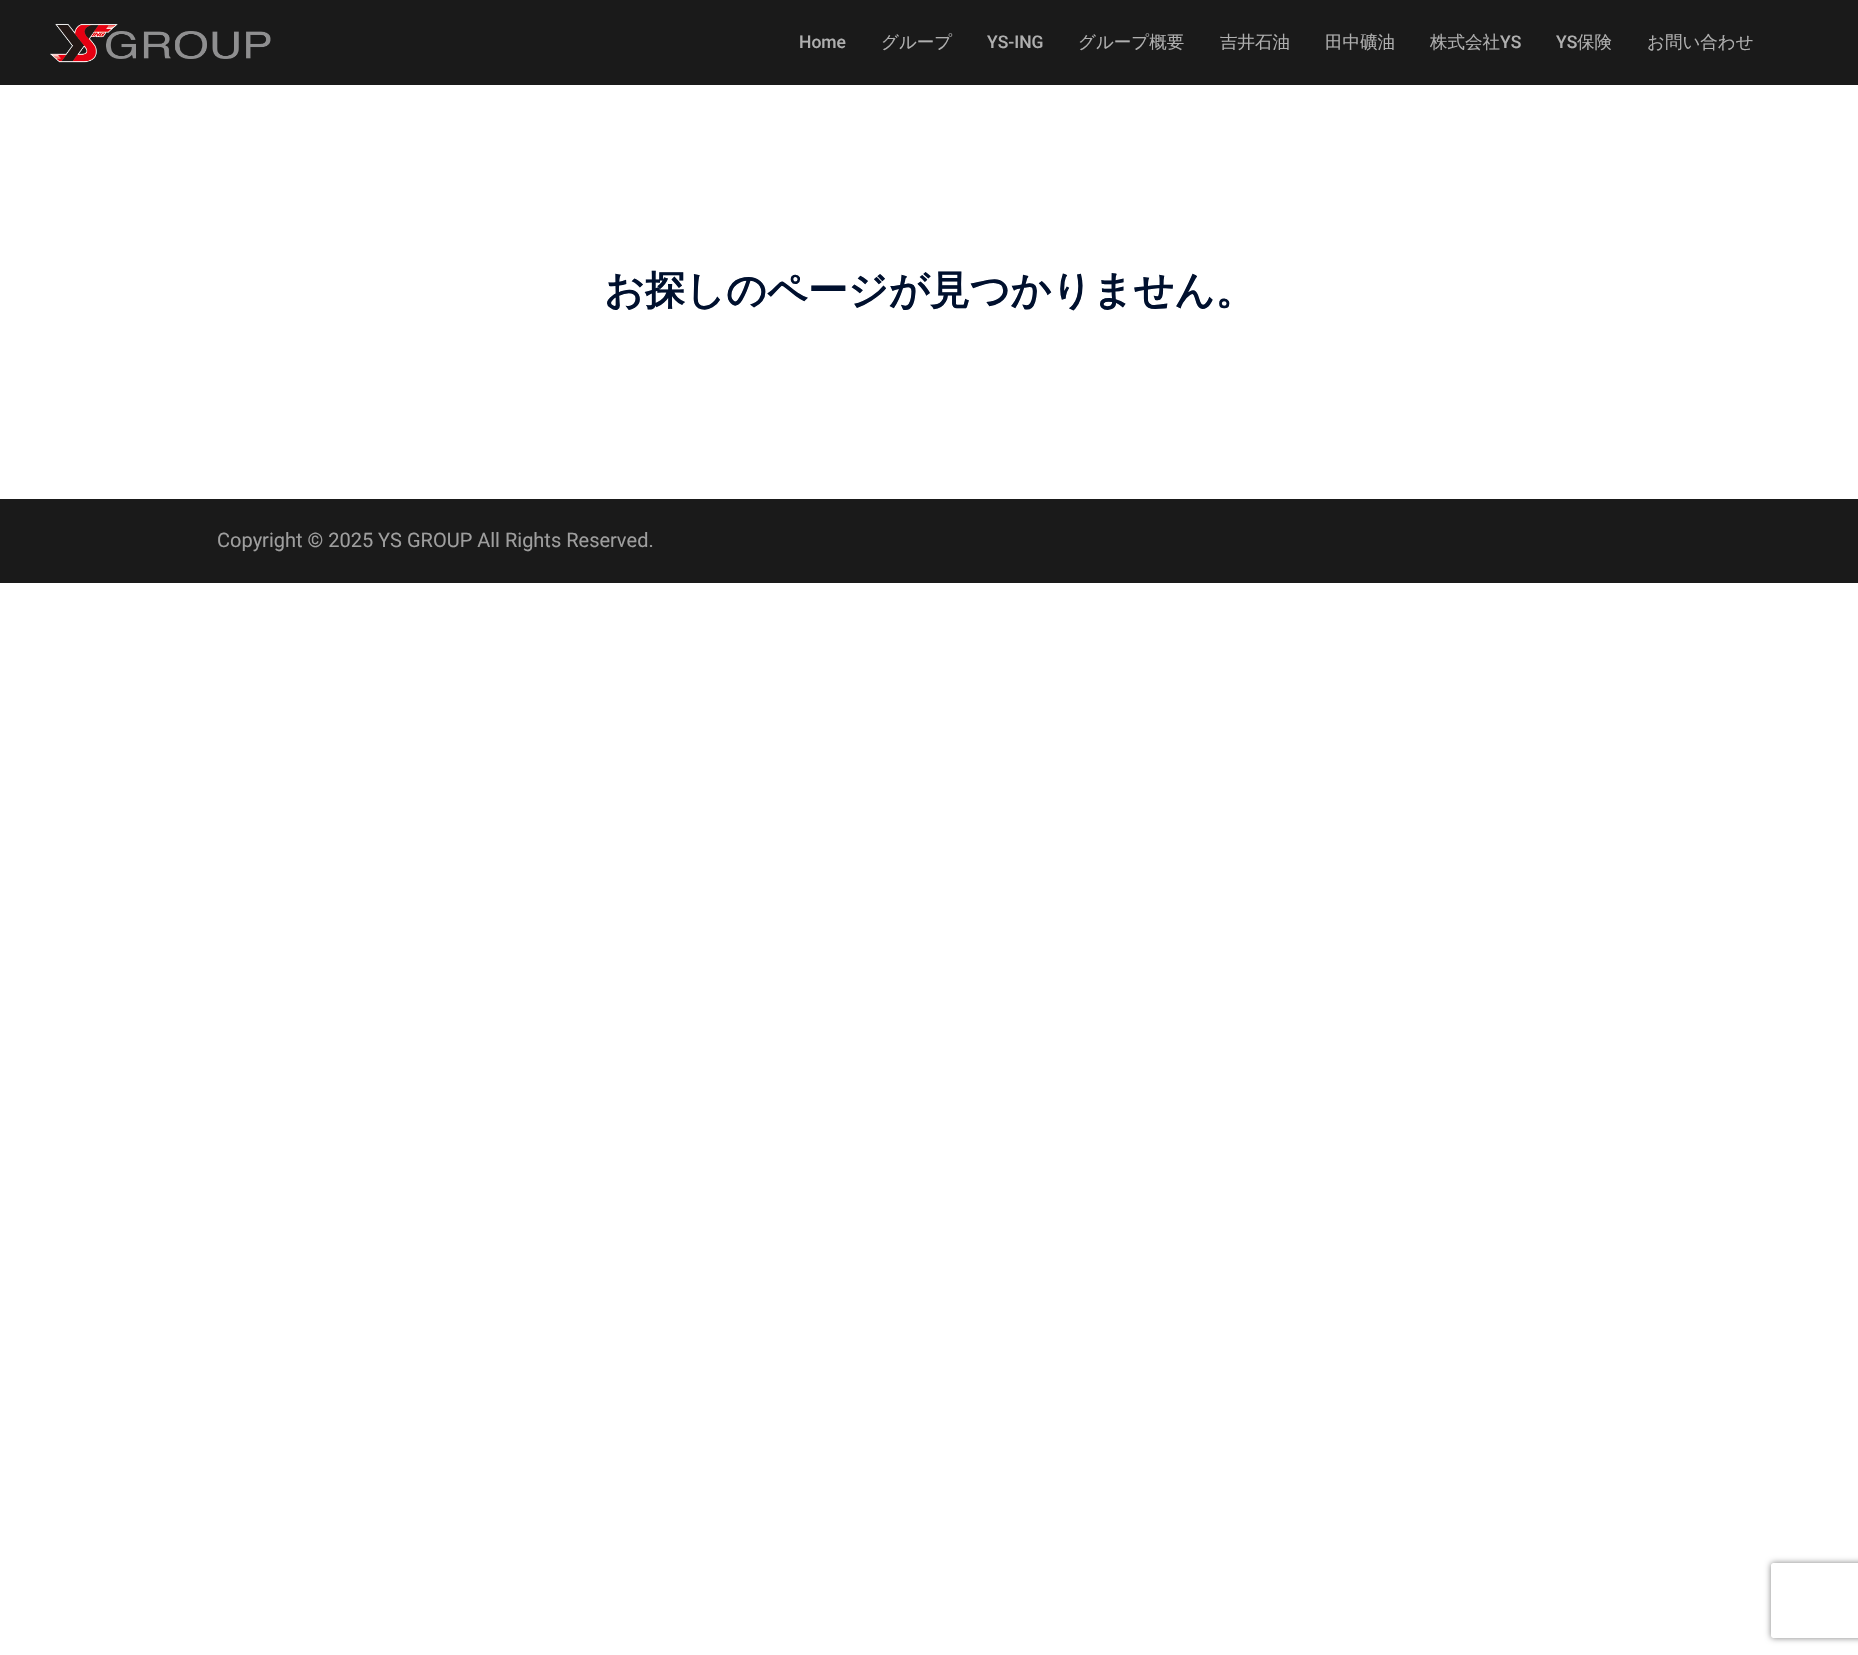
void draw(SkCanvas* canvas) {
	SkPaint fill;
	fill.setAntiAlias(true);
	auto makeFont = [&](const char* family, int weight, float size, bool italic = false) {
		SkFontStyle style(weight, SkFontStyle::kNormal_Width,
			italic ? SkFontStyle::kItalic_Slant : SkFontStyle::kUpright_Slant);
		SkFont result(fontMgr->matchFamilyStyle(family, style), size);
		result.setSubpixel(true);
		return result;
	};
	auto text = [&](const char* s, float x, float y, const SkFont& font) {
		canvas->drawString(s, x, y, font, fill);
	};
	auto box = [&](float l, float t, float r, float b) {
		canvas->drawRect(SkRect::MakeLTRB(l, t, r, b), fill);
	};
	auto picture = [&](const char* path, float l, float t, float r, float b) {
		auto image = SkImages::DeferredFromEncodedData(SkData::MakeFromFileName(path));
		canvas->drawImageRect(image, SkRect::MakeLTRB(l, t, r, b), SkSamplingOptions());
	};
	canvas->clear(0xFFFFFFFF);
	fill.setColor(0xFF1A1A1A);
	box(0, 0, 1858, 85);
	picture("image0.png", 50, 23, 271, 63);
	box(0, 499, 1858, 583);
	canvas->save();
	canvas->clipPath(SkPathBuilder(SkPathFillType::kEvenOdd).moveTo(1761, 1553).lineTo(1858, 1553).lineTo(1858, 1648).lineTo(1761, 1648).close().moveTo(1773.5f, 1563).lineTo(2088.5f, 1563).cubicTo(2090, 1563, 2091, 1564, 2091, 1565.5f).lineTo(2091, 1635.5f).cubicTo(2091, 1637, 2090, 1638, 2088.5f, 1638).lineTo(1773.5f, 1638).cubicTo(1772, 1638, 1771, 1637, 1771, 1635.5f).lineTo(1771, 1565.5f).cubicTo(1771, 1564, 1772, 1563, 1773.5f, 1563).close().detach(), true);
	fill.setColor(0xFF808080);
	fill.setMaskFilter(SkMaskFilter::MakeBlur(kNormal_SkBlurStyle, 3));
	canvas->drawRoundRect(SkRect::MakeLTRB(1771, 1563, 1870, 1638), 2.5f, 2.5f, fill);
	fill.setMaskFilter(nullptr);
	canvas->restore();
	auto font1 = makeFont("Roboto", 500, 17.5f);
	fill.setColor(0xFFAFAFAF);
	text("Home", 799, 48, font1);
	auto font2 = makeFont("WenQuanYi Zen Hei", 500, 17.5f);
	text("グループ", 881, 48, font2);
	text("YS-ING", 987, 48, font1);
	text("グループ概要", 1078, 48, font2);
	text("吉井石油", 1220, 48, font2);
	text("田中礦油", 1325, 48, font2);
	text("株式会社", 1430, 48, font2);
	text("YS", 1500, 48, font1);
	text("YS", 1556, 48, font1);
	text("保険", 1577, 48, font2);
	text("お問い合わせ", 1647, 48, font2);
	auto font3 = makeFont("WenQuanYi Zen Hei", 700, 40);
	fill.setColor(0xFF00102E);
	text("お探しのページが見つかりません。", 604, 304, font3);
	auto font4 = makeFont("Roboto", 400, 20);
	fill.setColor(0xFF9E9E9E);
	text("Copyright © 2025 YS GROUP All Rights Reserved.", 217, 547, font4);
}
